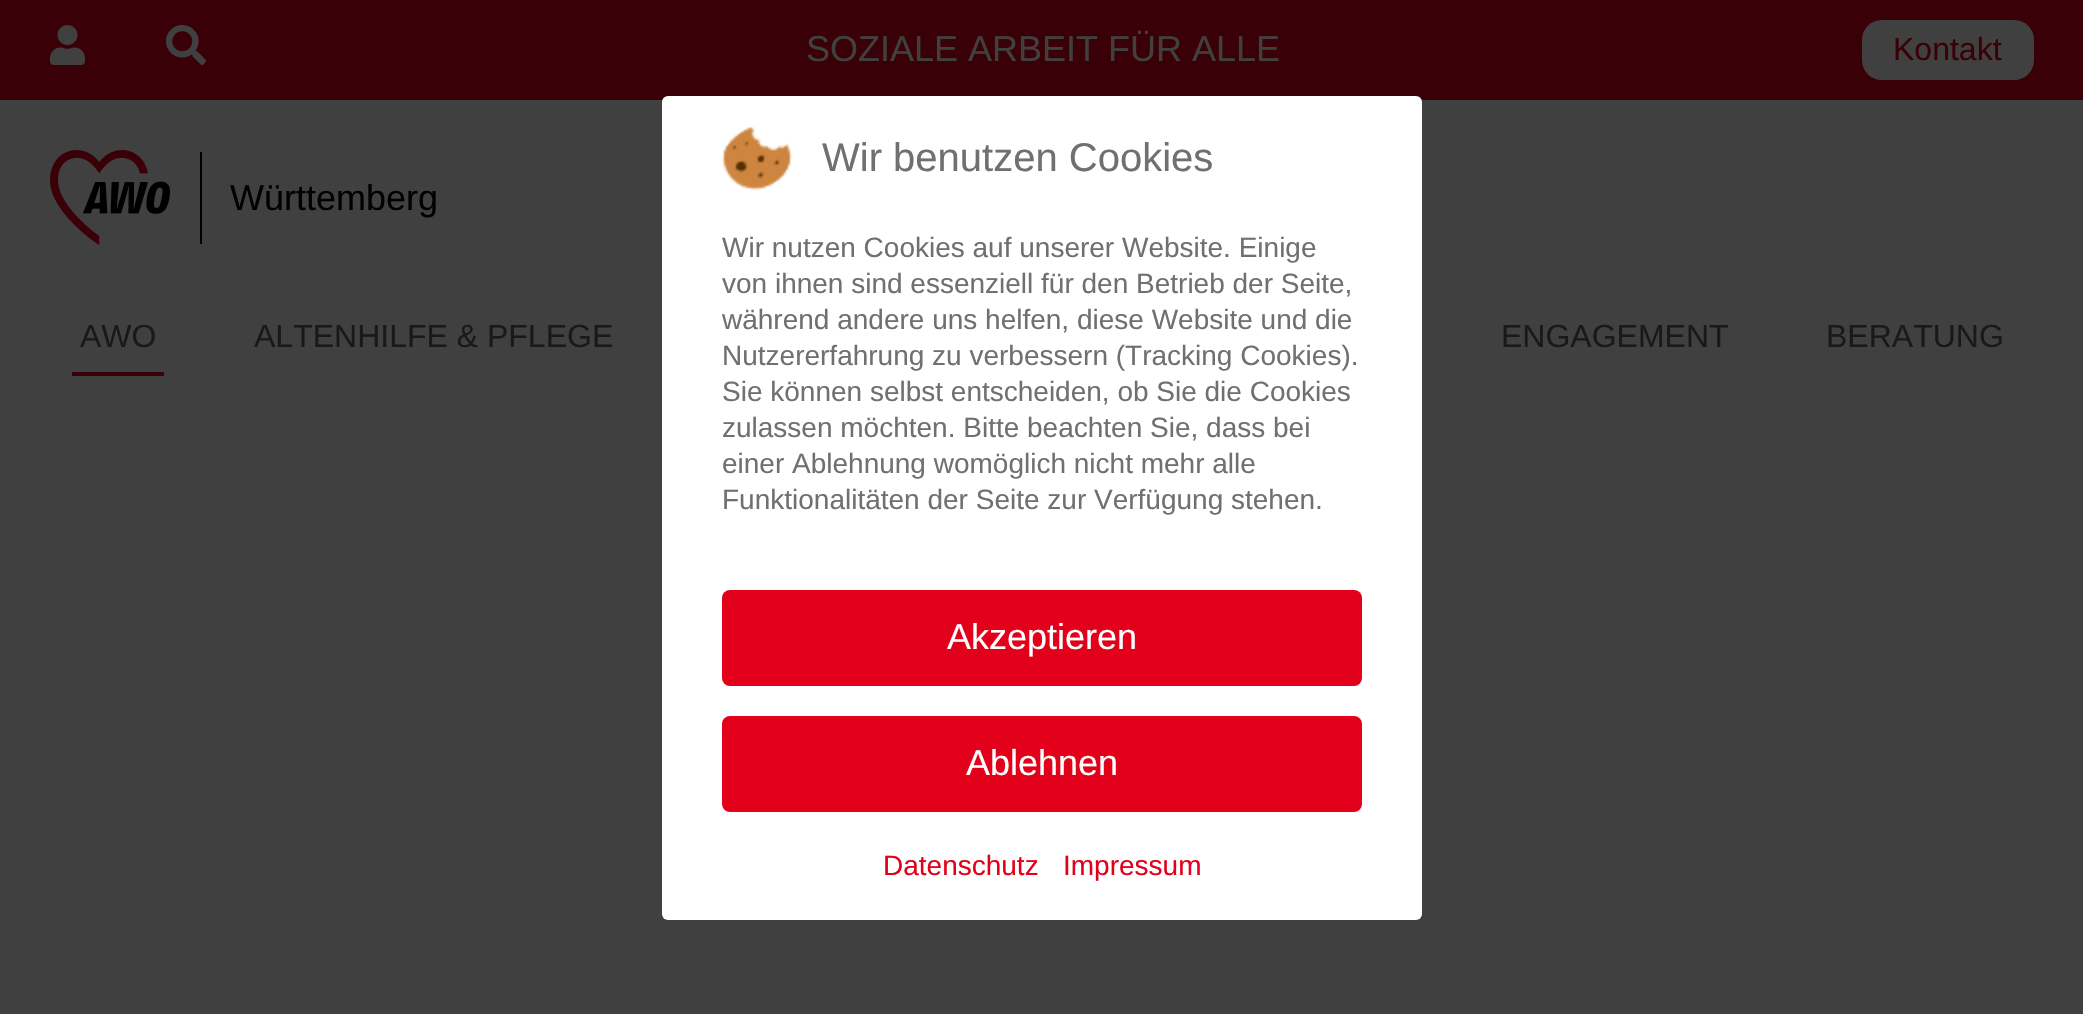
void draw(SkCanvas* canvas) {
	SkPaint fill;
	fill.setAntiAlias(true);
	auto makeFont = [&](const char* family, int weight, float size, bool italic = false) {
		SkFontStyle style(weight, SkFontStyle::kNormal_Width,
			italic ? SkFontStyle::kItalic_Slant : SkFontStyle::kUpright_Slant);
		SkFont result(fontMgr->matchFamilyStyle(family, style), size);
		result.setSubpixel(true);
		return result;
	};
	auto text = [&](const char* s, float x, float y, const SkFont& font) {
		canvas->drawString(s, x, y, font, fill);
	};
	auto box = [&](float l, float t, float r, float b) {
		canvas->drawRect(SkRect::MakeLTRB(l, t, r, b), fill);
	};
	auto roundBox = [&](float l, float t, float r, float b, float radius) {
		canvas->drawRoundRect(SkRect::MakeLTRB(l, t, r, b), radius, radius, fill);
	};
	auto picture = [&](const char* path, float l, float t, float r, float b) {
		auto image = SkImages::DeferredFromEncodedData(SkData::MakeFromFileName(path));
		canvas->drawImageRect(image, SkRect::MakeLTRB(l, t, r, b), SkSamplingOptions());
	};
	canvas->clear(0xFF404040);
	fill.setColor(0xFF390007);
	box(0, 0, 2083, 100);
	picture("image0.png", 50, 25, 85, 65);
	picture("image1.png", 166, 25, 206, 65);
	fill.setColor(0xFF404040);
	roundBox(1862, 20, 2034, 80, 20);
	fill.setColor(0xFFFFFFFF);
	roundBox(662, 96, 1422, 920, 6);
	picture("image2.png", 722, 126, 792, 190);
	fill.setColor(0xFFE2001A);
	roundBox(722, 590, 1362, 686, 8);
	roundBox(722, 716, 1362, 812, 8);
	picture("image3.png", 50, 150, 170, 245);
	fill.setColor(0xFF000000);
	box(200, 152, 202, 244);
	fill.setColor(0xFF390007);
	box(72, 372, 164, 376);
	auto font1 = makeFont("Liberation Sans", 400, 36);
	fill.setColor(0xFF404040);
	text("SOZIALE ARBEIT FÜR ALLE", 806, 61, font1);
	auto font2 = makeFont("Liberation Sans", 400, 32);
	fill.setColor(0xFF390007);
	text("Kontakt", 1893, 60, font2);
	auto font3 = makeFont("Liberation Sans", 400, 40);
	fill.setColor(0xFF707070);
	text("Wir benutzen Cookies", 822, 171, font3);
	auto font4 = makeFont("Liberation Sans", 400, 28);
	text("Wir nutzen Cookies auf unserer Website. Einige", 722, 257, font4);
	text("von ihnen sind essenziell für den Betrieb der Seite,", 722, 293, font4);
	text("während andere uns helfen, diese Website und die", 722, 329, font4);
	text("Nutzererfahrung zu verbessern (Tracking Cookies).", 722, 365, font4);
	text("Sie können selbst entscheiden, ob Sie die Cookies", 722, 401, font4);
	text("zulassen möchten. Bitte beachten Sie, dass bei", 722, 437, font4);
	text("einer Ablehnung womöglich nicht mehr alle", 722, 473, font4);
	text("Funktionalitäten der Seite zur Verfügung stehen.", 722, 509, font4);
	fill.setColor(0xFFFFFFFF);
	text("Akzeptieren", 947, 649, font1);
	text("Ablehnen", 966, 775, font1);
	fill.setColor(0xFFE2001A);
	text("Datenschutz", 883, 875, font4);
	text("Impressum", 1063, 875, font4);
	fill.setColor(0xFF000000);
	text("Württemberg", 230, 210, font1);
	fill.setColor(0xFF191919);
	text("AWO", 80, 347, font2);
	text("ALTENHILFE & PFLEGE", 254, 347, font2);
	text("ENGAGEMENT", 1501, 347, font2);
	text("BERATUNG", 1826, 347, font2);
}
